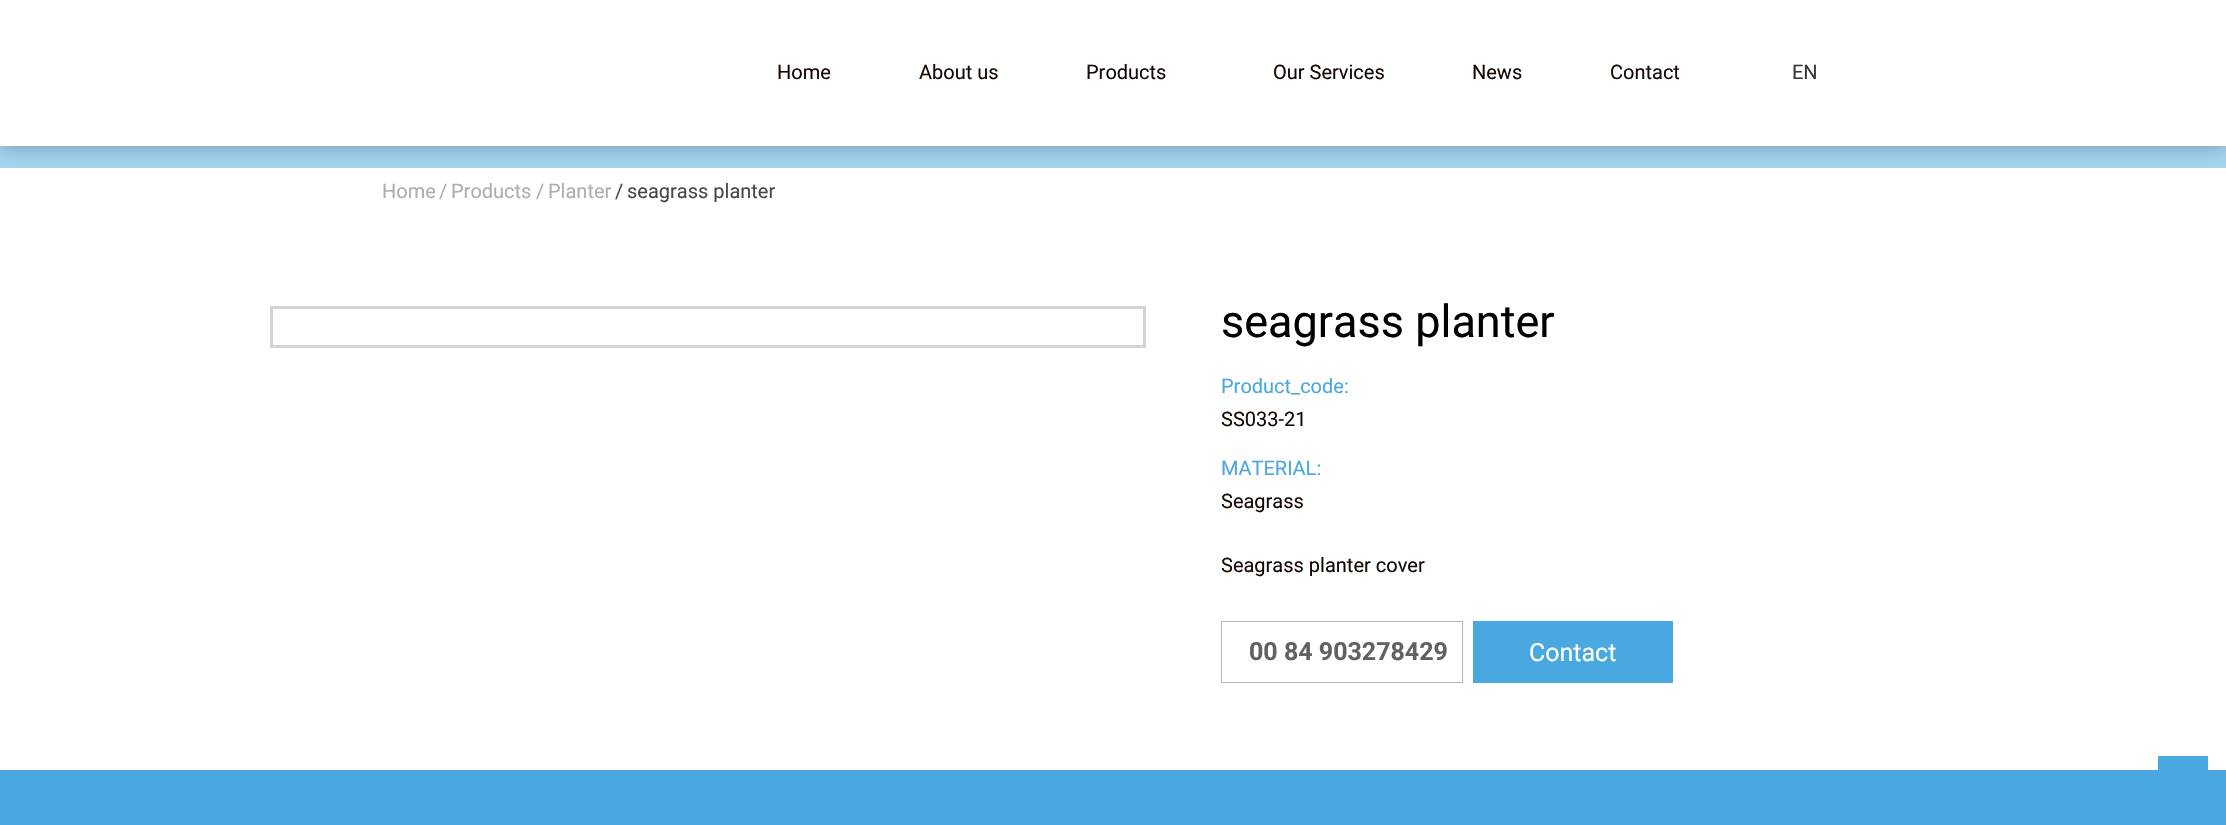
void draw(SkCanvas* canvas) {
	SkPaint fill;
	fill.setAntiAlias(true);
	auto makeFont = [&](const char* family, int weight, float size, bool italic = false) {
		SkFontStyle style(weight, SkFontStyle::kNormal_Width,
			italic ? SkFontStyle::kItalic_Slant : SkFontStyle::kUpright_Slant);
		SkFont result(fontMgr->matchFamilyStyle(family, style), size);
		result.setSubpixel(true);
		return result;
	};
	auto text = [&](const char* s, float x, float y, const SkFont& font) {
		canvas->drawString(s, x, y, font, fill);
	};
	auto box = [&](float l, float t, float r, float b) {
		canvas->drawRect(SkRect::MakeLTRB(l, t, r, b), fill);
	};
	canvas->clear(0xFFFFFFFF);
	fill.setColor(0xFFA4D4EF);
	box(0, 146, 2226, 168);
	fill.setColor(0x4D000000);
	fill.setMaskFilter(SkMaskFilter::MakeBlur(kNormal_SkBlurStyle, 9.5f));
	canvas->drawRect(SkRect::MakeLTRB(0, 0, 2226, 146), fill);
	fill.setMaskFilter(nullptr);
	fill.setColor(0xFFFFFFFF);
	box(0, 0, 2226, 146);
	fill.setStyle(SkPaint::kStroke_Style);
	fill.setStrokeWidth(3);
	fill.setColor(0xFFD4D4D4);
	canvas->drawRect(SkRect::MakeLTRB(271.5f, 307.5f, 1144.5f, 346.5f), fill);
	fill.setStrokeWidth(1);
	fill.setColor(0xFFB8B7B7);
	canvas->drawRect(SkRect::MakeLTRB(1221.5f, 621.5f, 1462.5f, 682.5f), fill);
	fill.setStyle(SkPaint::kFill_Style);
	fill.setColor(0xFF49A8DF);
	box(1473, 621, 1673, 683);
	box(0, 770, 2226, 825);
	box(2158, 756, 2208, 770);
	auto font1 = makeFont("Roboto", 400, 20);
	fill.setColor(0xFF160902);
	text("Home", 777, 79, font1);
	text("About us", 919, 79, font1);
	text("Products", 1086, 79, font1);
	text("Our Services", 1273, 79, font1);
	text("News", 1472, 79, font1);
	text("Contact", 1610, 79, font1);
	fill.setColor(0xFF373737);
	text("EN", 1792, 79, font1);
	fill.setColor(0xFFAFAEAE);
	text("Home", 382, 198, font1);
	text("/", 439, 198, font1);
	text("Products", 451, 198, font1);
	text("/", 536, 198, font1);
	text("Planter", 548, 198, font1);
	fill.setColor(0xFF484747);
	text("/", 615, 198, font1);
	text("seagrass planter", 627, 198, font1);
	auto font2 = makeFont("Roboto", 400, 45);
	fill.setColor(0xFF000000);
	text("seagrass planter", 1221, 337, font2);
	fill.setColor(0xFF49A8DF);
	text("Product_code:", 1221, 393, font1);
	fill.setColor(0xFF160902);
	text("SS033-21", 1221, 426, font1);
	fill.setColor(0xFF49A8DF);
	text("MATERIAL:", 1221, 475, font1);
	fill.setColor(0xFF160902);
	text("Seagrass", 1221, 508, font1);
	text("Seagrass planter cover", 1221, 572, font1);
	auto font3 = makeFont("Roboto", 700, 25);
	fill.setColor(0xFF616161);
	text("00 84 903278429", 1249, 660, font3);
	auto font4 = makeFont("Roboto", 400, 25);
	fill.setColor(0xFFFFFFFF);
	text("Contact", 1529, 661, font4);
}
